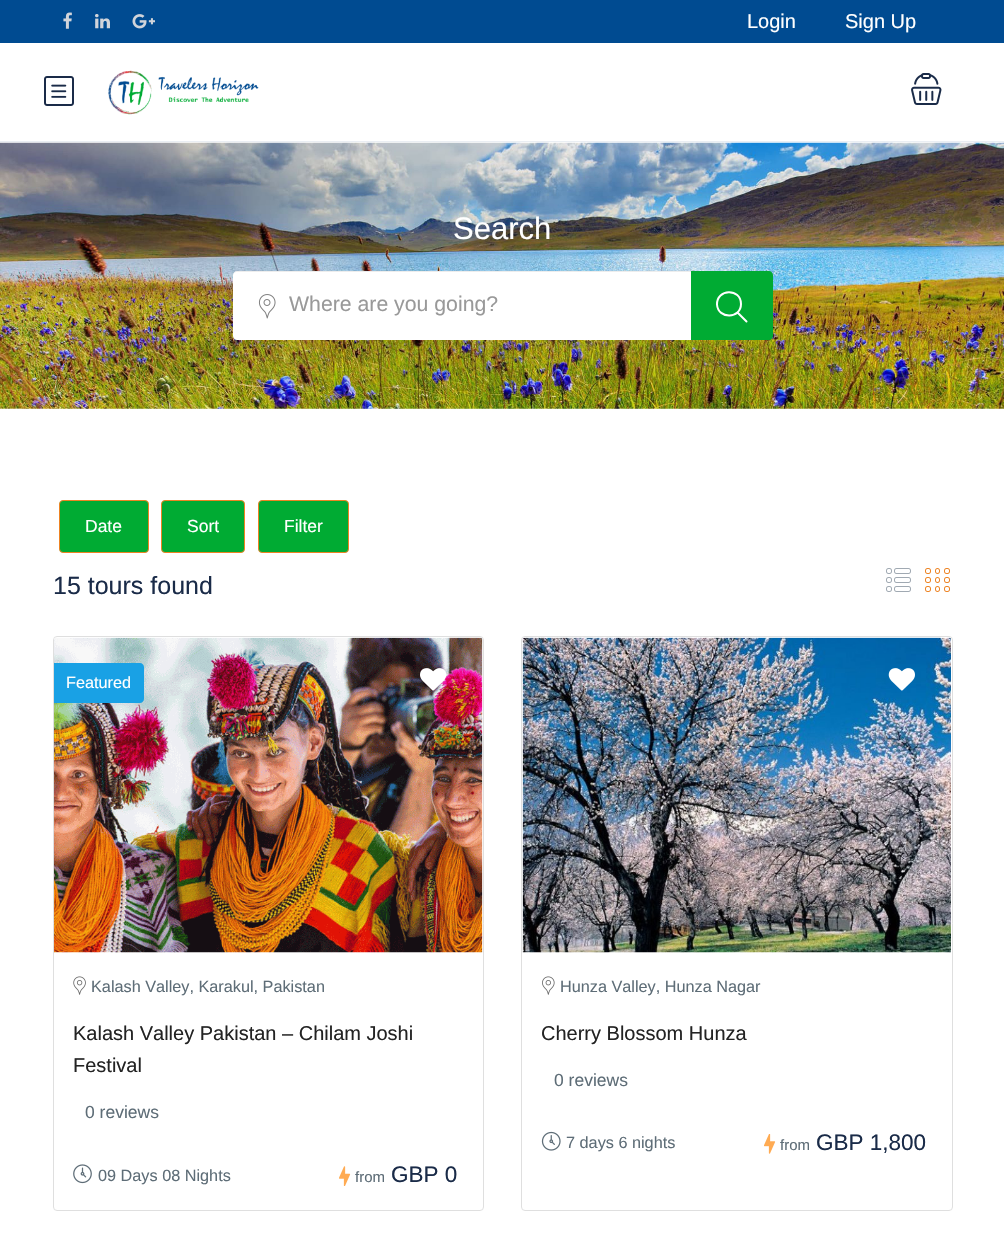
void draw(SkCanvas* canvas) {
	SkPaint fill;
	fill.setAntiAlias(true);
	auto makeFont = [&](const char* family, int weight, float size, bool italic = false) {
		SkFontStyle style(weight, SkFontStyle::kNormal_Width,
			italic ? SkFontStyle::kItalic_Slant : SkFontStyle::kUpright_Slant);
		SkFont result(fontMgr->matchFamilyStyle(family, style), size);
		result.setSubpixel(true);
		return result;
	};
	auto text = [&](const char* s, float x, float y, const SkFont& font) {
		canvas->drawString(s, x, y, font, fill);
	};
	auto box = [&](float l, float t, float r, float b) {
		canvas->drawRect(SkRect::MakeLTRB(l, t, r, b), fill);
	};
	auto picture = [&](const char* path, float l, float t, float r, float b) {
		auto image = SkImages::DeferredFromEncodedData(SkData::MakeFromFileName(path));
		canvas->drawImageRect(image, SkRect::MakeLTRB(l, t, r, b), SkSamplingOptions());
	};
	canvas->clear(0xFFFFFFFF);
	fill.setColor(0xFF004B91);
	box(0, 0, 1004, 43);
	picture("image0.png", 63, 12, 72, 29);
	picture("image1.png", 95, 14, 110, 29);
	picture("image2.png", 132, 14, 155, 29);
	fill.setColor(0xFFEAEEF3);
	box(0, 141, 1004, 142);
	picture("image3.png", 44, 76, 74, 106);
	picture("image4.png", 108, 70, 259, 115);
	picture("image5.png", 911, 73, 942, 105);
	picture("image6.png", 0, 142, 1004, 409);
	fill.setColor(0xFFFFFFFF);
	canvas->drawPath(SkPathBuilder().moveTo(237, 271).lineTo(691, 271).lineTo(691, 340).lineTo(237, 340).cubicTo(235, 340, 233, 338, 233, 336).lineTo(233, 275).cubicTo(233, 273, 235, 271, 237, 271).close().detach(), fill);
	picture("image7.png", 258, 294, 276, 319);
	fill.setColor(0x12000000);
	canvas->drawPath(SkPathBuilder().moveTo(236, 272).lineTo(691, 272).lineTo(691, 271).lineTo(237, 271).cubicTo(236, 271, 234, 272, 234, 273).close().detach(), fill);
	fill.setColor(0xFF00AB33);
	canvas->drawPath(SkPathBuilder().moveTo(691, 271).lineTo(769, 271).cubicTo(771, 271, 773, 273, 773, 275).lineTo(773, 336).cubicTo(773, 338, 771, 340, 769, 340).lineTo(691, 340).close().detach(), fill);
	fill.setStyle(SkPaint::kStroke_Style);
	fill.setStrokeWidth(2);
	fill.setStrokeCap(SkPaint::kRound_Cap);
	fill.setStrokeJoin(SkPaint::kRound_Join);
	fill.setColor(0xFFFFFFFF);
	canvas->drawPath(SkPathBuilder().moveTo(741, 304).cubicTo(741, 319, 718, 319.5f, 717, 304.5f).cubicTo(716.5f, 288.5f, 741, 288, 741, 304).close().moveTo(737.5f, 312.5f).lineTo(746.5f, 321.5f).detach(), fill);
	fill.setStyle(SkPaint::kFill_Style);
	fill.setColor(0xFF00AB33);
	canvas->drawRoundRect(SkRect::MakeLTRB(59.5f, 500.5f, 148.5f, 552.5f), 3.5f, 3.5f, fill);
	fill.setStyle(SkPaint::kStroke_Style);
	fill.setStrokeWidth(1);
	fill.setStrokeCap(SkPaint::kButt_Cap);
	fill.setStrokeJoin(SkPaint::kMiter_Join);
	fill.setColor(0xFFED8323);
	canvas->drawRoundRect(SkRect::MakeLTRB(59.5f, 500.5f, 148.5f, 552.5f), 3.5f, 3.5f, fill);
	fill.setStyle(SkPaint::kFill_Style);
	fill.setColor(0xFF00AB33);
	canvas->drawRoundRect(SkRect::MakeLTRB(161.5f, 500.5f, 244.5f, 552.5f), 3.5f, 3.5f, fill);
	fill.setStyle(SkPaint::kStroke_Style);
	fill.setColor(0xFFED8323);
	canvas->drawRoundRect(SkRect::MakeLTRB(161.5f, 500.5f, 244.5f, 552.5f), 3.5f, 3.5f, fill);
	fill.setStyle(SkPaint::kFill_Style);
	fill.setColor(0xFF00AB33);
	canvas->drawRoundRect(SkRect::MakeLTRB(258.5f, 500.5f, 348.5f, 552.5f), 3.5f, 3.5f, fill);
	fill.setStyle(SkPaint::kStroke_Style);
	fill.setColor(0xFFED8323);
	canvas->drawRoundRect(SkRect::MakeLTRB(258.5f, 500.5f, 348.5f, 552.5f), 3.5f, 3.5f, fill);
	picture("image8.png", 886, 568, 911, 592);
	picture("image9.png", 925, 568, 950, 592);
	fill.setColor(0xFFDFDFDF);
	canvas->drawRoundRect(SkRect::MakeLTRB(53.5f, 636.5f, 483.5f, 1210.5f), 3.5f, 3.5f, fill);
	picture("image10.png", 54, 637, 483, 953);
	fill.setStyle(SkPaint::kFill_Style);
	fill.setColor(0xFF19A1E5);
	canvas->drawPath(SkPathBuilder().moveTo(54, 663).lineTo(140, 663).cubicTo(142, 663, 144, 665, 144, 667).lineTo(144, 699).cubicTo(144, 701, 142, 703, 140, 703).lineTo(54, 703).close().detach(), fill);
	picture("image11.png", 420, 668, 447, 691);
	picture("image12.png", 73, 976, 86, 995);
	picture("image13.png", 73, 1164, 92, 1184);
	picture("image14.png", 339, 1166, 351, 1186);
	fill.setStyle(SkPaint::kStroke_Style);
	fill.setColor(0xFFDFDFDF);
	canvas->drawRoundRect(SkRect::MakeLTRB(521.5f, 636.5f, 952.5f, 1210.5f), 3.5f, 3.5f, fill);
	picture("image15.png", 522, 637, 951, 953);
	picture("image16.png", 888, 668, 915, 691);
	picture("image17.png", 542, 976, 555, 995);
	picture("image18.png", 541, 1131, 561, 1151);
	picture("image19.png", 764, 1134, 776, 1154);
	auto font1 = makeFont("Liberation Sans", 400, 20);
	fill.setStyle(SkPaint::kFill_Style);
	fill.setColor(0xFFFFFFFF);
	text("Login", 747, 28, font1);
	text("Sign Up", 845, 28, font1);
	auto font2 = makeFont("Liberation Sans", 400, 31);
	text("Search", 453, 239, font2);
	auto font3 = makeFont("Liberation Sans", 400, 21.25f);
	fill.setColor(0xFF999999);
	text("Where are you going?", 289, 311, font3);
	auto font4 = makeFont("Liberation Sans", 400, 17.5f);
	fill.setColor(0xFFFFFFFF);
	text("Date", 85, 532, font4);
	text("Sort", 187, 532, font4);
	text("Filter", 284, 532, font4);
	auto font5 = makeFont("Liberation Sans", 400, 25);
	fill.setColor(0xFF1A2B48);
	text("15 tours found", 53, 594, font5);
	auto font6 = makeFont("Liberation Sans", 400, 16.25f);
	fill.setColor(0xFFFFFFFF);
	text("Featured", 66, 688, font6);
	fill.setColor(0xFF5E6D77);
	text("Kalash Valley, Karakul, Pakistan", 91, 992, font6);
	fill.setColor(0xFF232323);
	text("Kalash Valley Pakistan – Chilam Joshi", 73, 1040, font1);
	text("Festival", 73, 1072, font1);
	fill.setColor(0xFF5E6D77);
	text("0 reviews", 85, 1118, font4);
	text("09 Days 08 Nights", 98, 1181, font6);
	auto font7 = makeFont("Liberation Sans", 400, 15);
	text("from", 355, 1182, font7);
	auto font8 = makeFont("Liberation Sans", 400, 22.5f);
	fill.setColor(0xFF1A2B48);
	text("GBP 0", 391, 1182, font8);
	fill.setColor(0xFF5E6D77);
	text("Hunza Valley, Hunza Nagar", 560, 992, font6);
	fill.setColor(0xFF232323);
	text("Cherry Blossom Hunza", 541, 1040, font1);
	fill.setColor(0xFF5E6D77);
	text("0 reviews", 554, 1086, font4);
	text("7 days 6 nights", 566, 1148, font6);
	text("from", 780, 1150, font7);
	fill.setColor(0xFF1A2B48);
	text("GBP 1,800", 816, 1150, font8);
}
